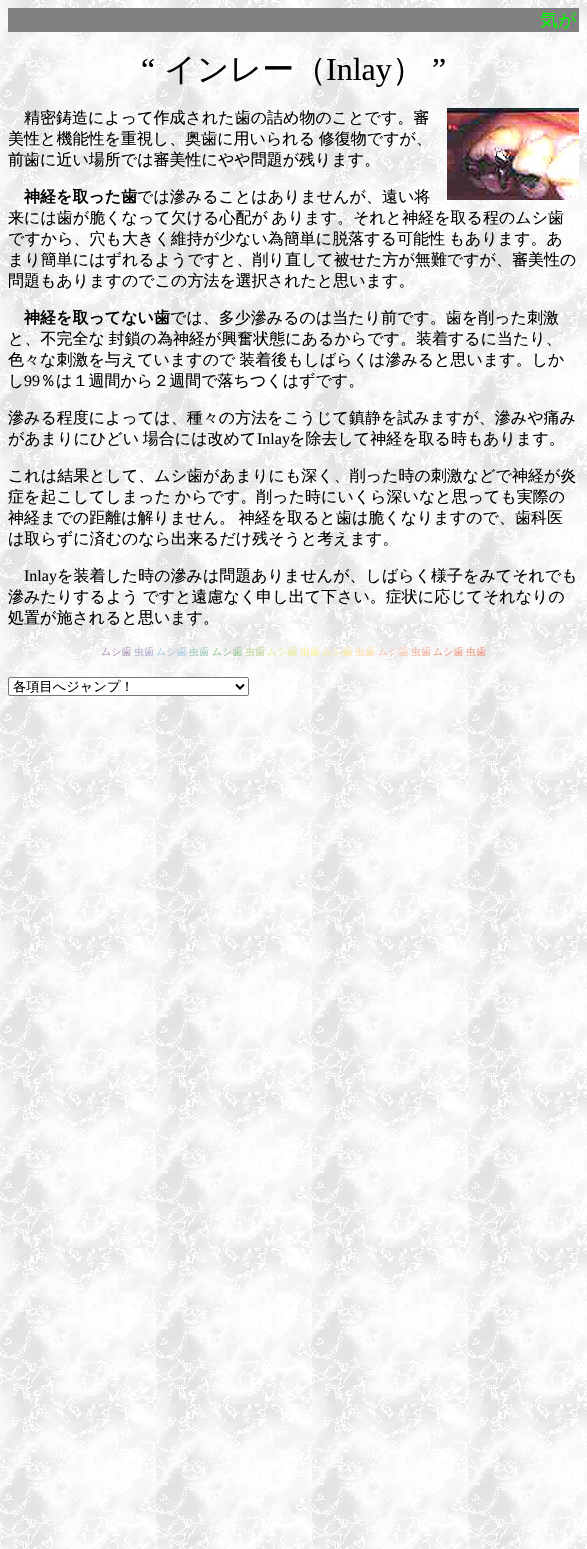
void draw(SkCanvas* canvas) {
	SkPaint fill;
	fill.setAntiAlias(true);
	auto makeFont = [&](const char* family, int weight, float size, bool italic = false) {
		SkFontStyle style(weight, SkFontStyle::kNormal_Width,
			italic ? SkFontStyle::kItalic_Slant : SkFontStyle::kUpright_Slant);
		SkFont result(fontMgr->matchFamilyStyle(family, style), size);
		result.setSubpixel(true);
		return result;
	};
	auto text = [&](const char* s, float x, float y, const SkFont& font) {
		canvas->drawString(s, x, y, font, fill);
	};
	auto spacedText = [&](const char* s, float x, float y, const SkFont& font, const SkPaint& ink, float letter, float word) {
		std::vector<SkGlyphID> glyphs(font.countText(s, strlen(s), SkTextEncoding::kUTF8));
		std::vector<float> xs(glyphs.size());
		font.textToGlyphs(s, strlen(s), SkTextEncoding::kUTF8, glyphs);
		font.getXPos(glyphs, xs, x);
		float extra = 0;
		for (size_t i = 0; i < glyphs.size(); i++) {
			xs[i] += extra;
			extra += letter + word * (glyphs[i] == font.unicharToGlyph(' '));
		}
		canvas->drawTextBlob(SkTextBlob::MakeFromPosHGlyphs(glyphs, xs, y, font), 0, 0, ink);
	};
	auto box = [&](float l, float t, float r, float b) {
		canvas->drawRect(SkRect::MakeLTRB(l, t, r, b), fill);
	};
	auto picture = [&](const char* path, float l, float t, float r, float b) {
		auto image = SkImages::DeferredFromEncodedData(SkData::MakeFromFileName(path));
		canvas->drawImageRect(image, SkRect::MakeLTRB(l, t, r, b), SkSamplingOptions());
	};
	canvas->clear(0xFFFFFFFF);
	picture("image0.png", 0, 0, 587, 1549);
	fill.setColor(0xFF808080);
	box(8, 8, 579, 32);
	picture("image1.png", 447, 108, 579, 200);
	fill.setColor(0xFFFFFFFF);
	canvas->drawRoundRect(SkRect::MakeLTRB(8.5f, 677.5f, 248.5f, 695.5f), 1.5f, 1.5f, fill);
	fill.setStyle(SkPaint::kStroke_Style);
	fill.setStrokeWidth(1);
	fill.setColor(0xFF767676);
	canvas->drawRoundRect(SkRect::MakeLTRB(8.5f, 677.5f, 248.5f, 695.5f), 1.5f, 1.5f, fill);
	fill.setStrokeWidth(2);
	fill.setColor(0xFF000000);
	canvas->drawPath(SkPathBuilder().moveTo(236, 684.5f).lineTo(240, 688.5f).lineTo(244, 684.5f).detach(), fill);
	auto font1 = makeFont("WenQuanYi Zen Hei", 500, 18);
	fill.setStyle(SkPaint::kFill_Style);
	fill.setColor(0xFF00FF00);
	text("気が", 540, 26, font1);
	auto font2 = makeFont("Liberation Serif", 400, 32);
	fill.setColor(0xFF000000);
	text("“", 141, 80, font2);
	auto font3 = makeFont("WenQuanYi Zen Hei", 500, 32);
	text("インレー（", 164, 80, font3);
	text("Inlay", 326, 80, font2);
	text("）", 392, 80, font3);
	text("”", 432, 80, font2);
	auto font4 = makeFont("WenQuanYi Zen Hei", 500, 16);
	text("精密鋳造によって作成された歯の詰め物のことです。審", 24, 123, font4);
	spacedText("美性と機能性を重視し、奥歯に用いられる 修復物ですが、", 8, 144, font4, fill, 0, -1);
	text("前歯に近い場所では審美性にやや問題が残ります。", 8, 165, font4);
	auto font5 = makeFont("WenQuanYi Zen Hei", 700, 16);
	text("神経を取った歯", 24, 202, font5);
	text("では滲みることはありませんが、遠い将", 137, 202, font4);
	spacedText("来には歯が脆くなって欠ける心配が あります。それと神経を取る程のムシ歯", 8, 223, font4, fill, 0, -1);
	spacedText("ですから、穴も大きく維持が少ない為簡単に脱落する可能性 もあります。あ", 8, 244, font4, fill, 0, -1);
	text("まり簡単にはずれるようですと、削り直して被せた方が無難ですが、審美性の", 8, 265, font4);
	text("問題もありますのでこの方法を選択されたと思います。", 8, 286, font4);
	text("神経を取ってない歯", 24, 323, font5);
	text("では、多少滲みるのは当たり前です。歯を削った刺激", 170, 323, font4);
	spacedText("と、不完全な 封鎖の為神経が興奮状態にあるからです。装着するに当たり、", 8, 344, font4, fill, 0, -1);
	spacedText("色々な刺激を与えていますので 装着後もしばらくは滲みると思います。しか", 8, 365, font4, fill, 0, -1);
	text("し", 8, 386, font4);
	auto font6 = makeFont("Liberation Serif", 400, 16);
	text("99", 24, 386, font6);
	text("％は１週間から２週間で落ちつくはずです。", 40, 386, font4);
	text("滲みる程度によっては、種々の方法をこうじて鎮静を試みますが、滲みや痛み", 8, 423, font4);
	spacedText("があまりにひどい 場合には改めて", 8, 444, font4, fill, 0, -1);
	text("Inlay", 257, 444, font6);
	text("を除去して神経を取る時もあります。", 289, 444, font4);
	text("これは結果として、ムシ歯があまりにも深く、削った時の刺激などで神経が炎", 8, 481, font4);
	spacedText("症を起こしてしまった からです。削った時にいくら深いなと思っても実際の", 8, 502, font4, fill, 0, -1);
	spacedText("神経までの距離は解りません。 神経を取ると歯は脆くなりますので、歯科医", 8, 523, font4, fill, 0, -1);
	text("は取らずに済むのなら出来るだけ残そうと考えます。", 8, 544, font4);
	text("Inlay", 24, 581, font6);
	text("を装着した時の滲みは問題ありませんが、しばらく様子をみてそれでも", 57, 581, font4);
	spacedText("滲みたりするよう ですと遠慮なく申し出て下さい。症状に応じてそれなりの", 8, 602, font4, fill, 0, -1);
	text("処置が施されると思います。", 8, 623, font4);
	auto font7 = makeFont("WenQuanYi Zen Hei", 500, 10);
	fill.setColor(0xFFAD94BC);
	text("ムシ歯", 101, 655, font7);
	fill.setColor(0xFFAFAFD2);
	text("虫歯", 134, 655, font7);
	fill.setColor(0xFFADCEE1);
	text("ムシ歯", 156, 655, font7);
	fill.setColor(0xFFA1CABB);
	text("虫歯", 189, 655, font7);
	fill.setColor(0xFF9BC99A);
	text("ムシ歯", 212, 655, font7);
	fill.setColor(0xFFC0D89C);
	text("虫歯", 245, 655, font7);
	fill.setColor(0xFFEBEB9D);
	text("ムシ歯", 267, 655, font7);
	fill.setColor(0xFFFEF39E);
	text("虫歯", 300, 655, font7);
	fill.setColor(0xFFFFEAA2);
	text("ムシ歯", 322, 655, font7);
	fill.setColor(0xFFFFDCA9);
	text("虫歯", 355, 655, font7);
	fill.setColor(0xFFF9C5AD);
	text("ムシ歯", 378, 655, font7);
	fill.setColor(0xFFF5B29C);
	text("虫歯", 411, 655, font7);
	fill.setColor(0xFFEF9B89);
	text("ムシ歯", 433, 655, font7);
	fill.setColor(0xFFF09A81);
	text("虫歯", 466, 655, font7);
	auto font8 = makeFont("WenQuanYi Zen Hei", 500, 13.25f);
	fill.setColor(0xFF000000);
	text("各項目へジャンプ！", 13, 691, font8);
}
